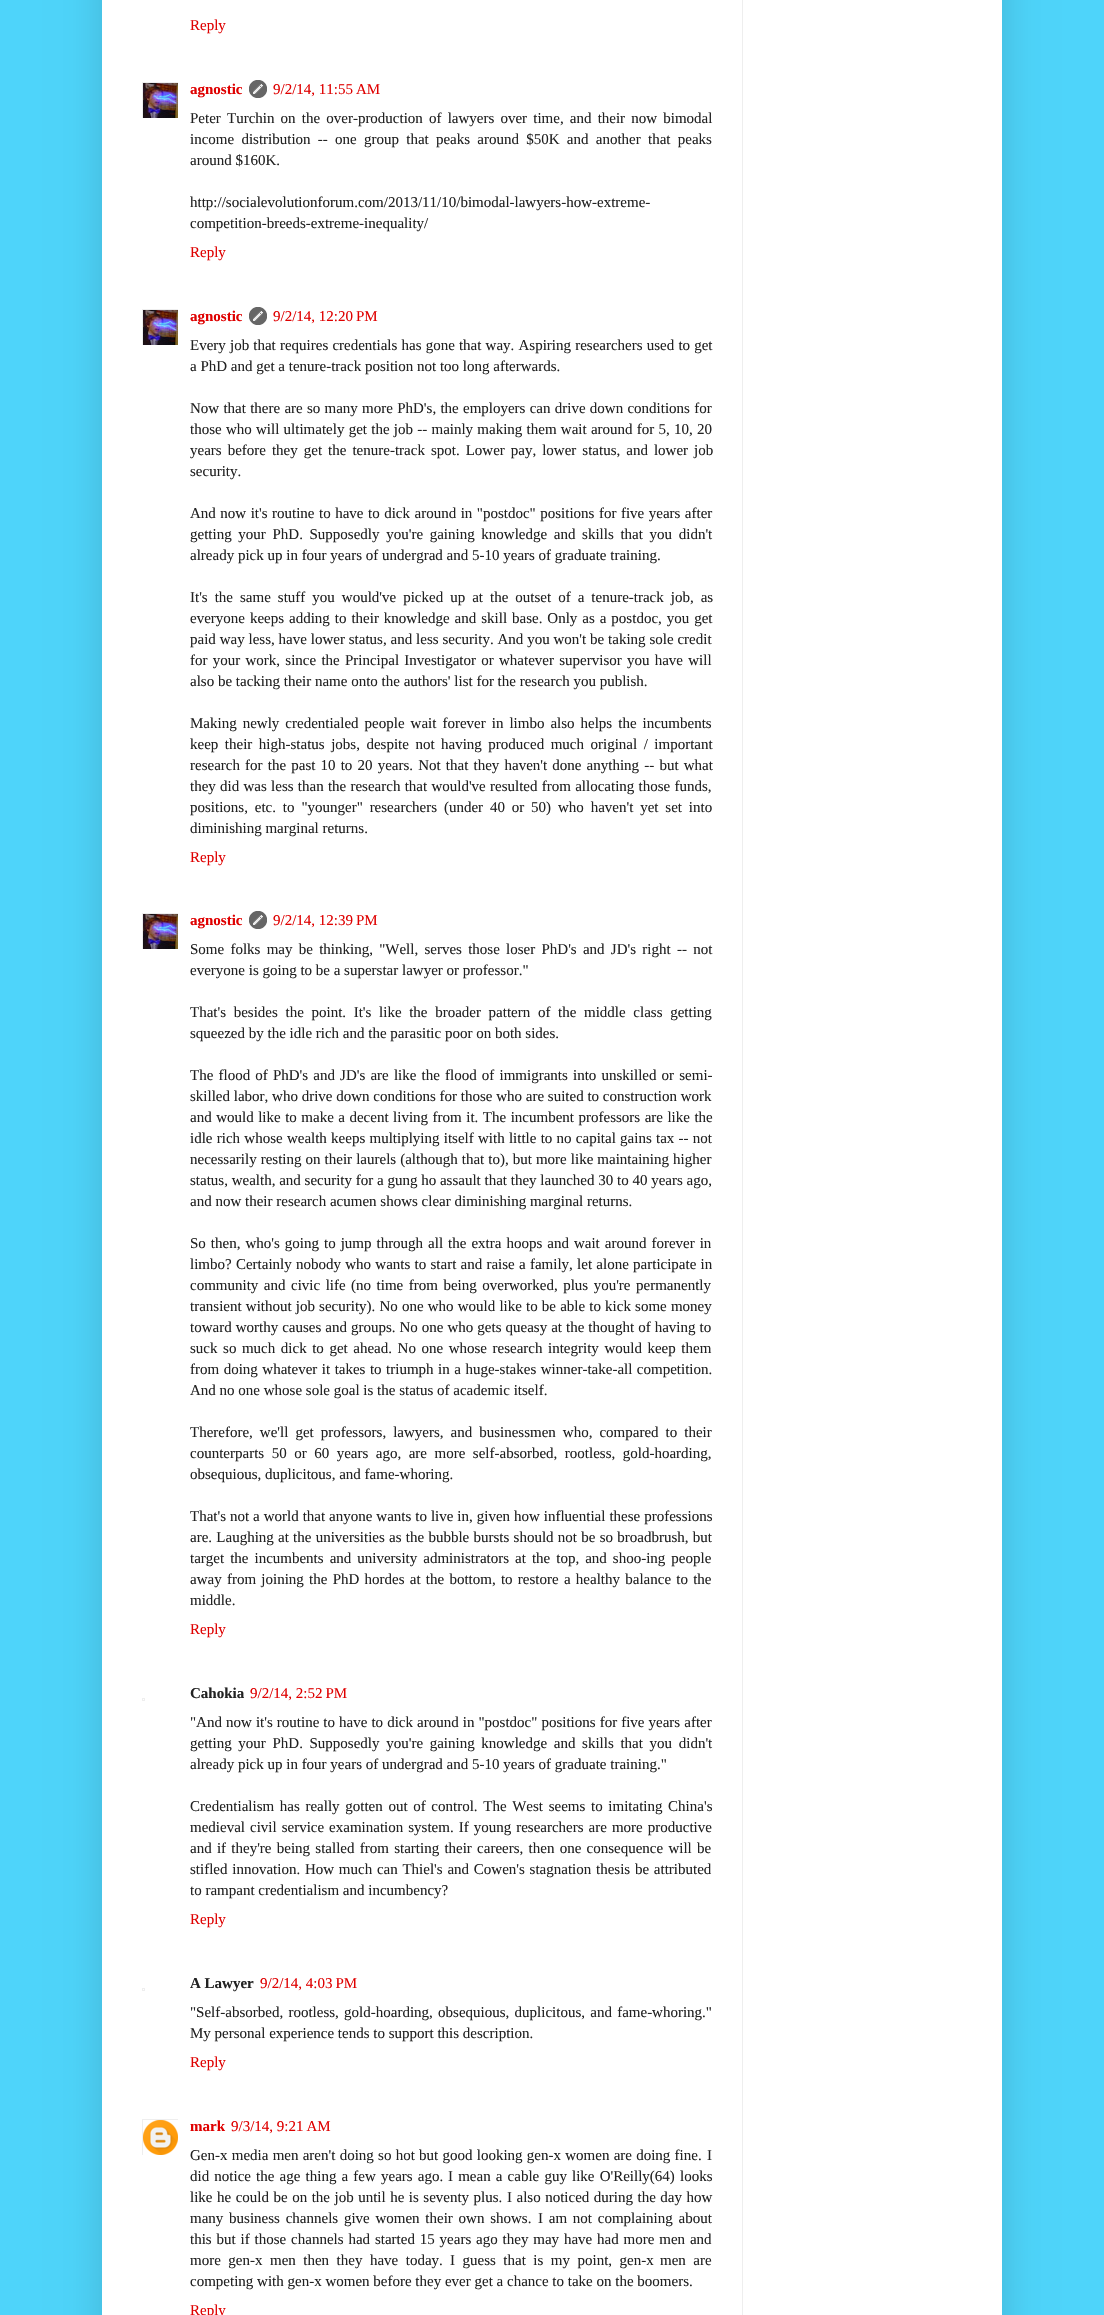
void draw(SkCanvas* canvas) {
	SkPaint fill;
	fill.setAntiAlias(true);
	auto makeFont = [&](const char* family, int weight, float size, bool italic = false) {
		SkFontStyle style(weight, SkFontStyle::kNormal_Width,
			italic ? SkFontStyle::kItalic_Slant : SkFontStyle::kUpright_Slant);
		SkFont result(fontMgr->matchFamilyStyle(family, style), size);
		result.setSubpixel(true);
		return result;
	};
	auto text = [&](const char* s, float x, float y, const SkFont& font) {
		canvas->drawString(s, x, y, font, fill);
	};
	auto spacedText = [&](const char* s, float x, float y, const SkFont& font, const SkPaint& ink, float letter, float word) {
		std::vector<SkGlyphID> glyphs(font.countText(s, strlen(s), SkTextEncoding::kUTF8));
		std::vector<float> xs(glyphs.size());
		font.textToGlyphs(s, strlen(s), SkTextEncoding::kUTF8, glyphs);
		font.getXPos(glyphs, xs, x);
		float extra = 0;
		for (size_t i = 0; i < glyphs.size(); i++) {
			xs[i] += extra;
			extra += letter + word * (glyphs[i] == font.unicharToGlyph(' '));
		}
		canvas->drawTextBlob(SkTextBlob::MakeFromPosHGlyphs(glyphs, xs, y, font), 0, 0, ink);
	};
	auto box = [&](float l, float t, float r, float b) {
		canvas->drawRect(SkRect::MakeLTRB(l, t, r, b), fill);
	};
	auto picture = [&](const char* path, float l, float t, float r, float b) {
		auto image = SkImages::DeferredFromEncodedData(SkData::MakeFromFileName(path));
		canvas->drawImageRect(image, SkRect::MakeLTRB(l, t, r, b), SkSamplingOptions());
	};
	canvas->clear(0xFF4ED4FA);
	fill.setColor(0x26000000);
	fill.setMaskFilter(SkMaskFilter::MakeBlur(kNormal_SkBlurStyle, 20));
	canvas->drawRect(SkRect::MakeLTRB(102, -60, 1002, 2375), fill);
	fill.setMaskFilter(nullptr);
	fill.setColor(0xFFFFFFFF);
	box(102, 0, 1002, 2315);
	canvas->save();
	canvas->clipRect(SkRect::MakeLTRB(142, 82, 178, 118));
	fill.setStyle(SkPaint::kStroke_Style);
	fill.setStrokeWidth(1);
	fill.setColor(0xFFEEEEEE);
	canvas->drawRect(SkRect::MakeLTRB(142.5f, 82.5f, 179.5f, 119.5f), fill);
	canvas->restore();
	picture("image0.png", 143, 83, 178, 118);
	picture("image1.png", 249, 80, 267, 98);
	canvas->save();
	canvas->clipRect(SkRect::MakeLTRB(142, 309, 178, 345));
	canvas->drawRect(SkRect::MakeLTRB(142.5f, 309.5f, 179.5f, 346.5f), fill);
	canvas->restore();
	picture("image0.png", 143, 310, 178, 345);
	picture("image1.png", 249, 307, 267, 325);
	canvas->save();
	canvas->clipRect(SkRect::MakeLTRB(142, 913, 178, 949));
	canvas->drawRect(SkRect::MakeLTRB(142.5f, 913.5f, 179.5f, 950.5f), fill);
	canvas->restore();
	picture("image0.png", 143, 914, 178, 949);
	picture("image1.png", 249, 911, 267, 929);
	canvas->drawRect(SkRect::MakeLTRB(142.5f, 1698.5f, 144.5f, 1700.5f), fill);
	canvas->drawRect(SkRect::MakeLTRB(142.5f, 1988.5f, 144.5f, 1990.5f), fill);
	canvas->save();
	canvas->clipRect(SkRect::MakeLTRB(142, 2119, 178, 2155));
	canvas->drawRect(SkRect::MakeLTRB(142.5f, 2119.5f, 178.5f, 2155.5f), fill);
	canvas->restore();
	picture("image2.png", 143, 2120, 178, 2155);
	fill.setStyle(SkPaint::kFill_Style);
	box(742, 0, 743, 2315);
	auto font1 = makeFont("Liberation Serif", 400, 15);
	fill.setColor(0xFFDF0000);
	text("Reply", 190, 30, font1);
	auto font2 = makeFont("Liberation Serif", 700, 15);
	text("agnostic", 190, 94, font2);
	text("9/2/14, 11:55 AM", 273, 94, font1);
	fill.setColor(0xFF222222);
	spacedText("Peter Turchin on the over-production of lawyers over time, and their now bimodal", 190, 123, font1, fill, 0, 2.4f);
	spacedText("income distribution -- one group that peaks around $50K and another that peaks", 190, 144, font1, fill, 0, 3.5f);
	text("around $160K.", 190, 165, font1);
	text("http://socialevolutionforum.com/2013/11/10/bimodal-lawyers-how-extreme-", 190, 207, font1);
	text("competition-breeds-extreme-inequality/", 190, 228, font1);
	fill.setColor(0xFFDF0000);
	text("Reply", 190, 257, font1);
	text("agnostic", 190, 321, font2);
	text("9/2/14, 12:20 PM", 273, 321, font1);
	fill.setColor(0xFF222222);
	spacedText("Every job that requires credentials has gone that way. Aspiring researchers used to get", 190, 350, font1, fill, 0, 0.4f);
	text("a PhD and get a tenure-track position not too long afterwards.", 190, 371, font1);
	spacedText("Now that there are so many more PhD's, the employers can drive down conditions for", 190, 413, font1, fill, 0, 0.5f);
	spacedText("those who will ultimately get the job -- mainly making them wait around for 5, 10, 20", 190, 434, font1, fill, 0, 0.5f);
	spacedText("years before they get the tenure-track spot. Lower pay, lower status, and lower job", 190, 455, font1, fill, 0, 2.25f);
	text("security.", 190, 476, font1);
	spacedText("And now it's routine to have to dick around in \"postdoc\" positions for five years after", 190, 518, font1, fill, 0, 0.75f);
	spacedText("getting your PhD. Supposedly you're gaining knowledge and skills that you didn't", 190, 539, font1, fill, 0, 2.9f);
	text("already pick up in four years of undergrad and 5-10 years of graduate training.", 190, 560, font1);
	spacedText("It's the same stuff you would've picked up at the outset of a tenure-track job, as", 190, 602, font1, fill, 0, 3.25f);
	spacedText("everyone keeps adding to their knowledge and skill base. Only as a postdoc, you get", 190, 623, font1, fill, 0, 1.2f);
	spacedText("paid way less, have lower status, and less security. And you won't be taking sole credit", 190, 644, font1, fill, 0, 0.1f);
	spacedText("for your work, since the Principal Investigator or whatever supervisor you have will", 190, 665, font1, fill, 0, 1.5f);
	text("also be tacking their name onto the authors' list for the research you publish.", 190, 686, font1);
	spacedText("Making newly credentialed people wait forever in limbo also helps the incumbents", 190, 728, font1, fill, 0, 2.25f);
	spacedText("keep their high-status jobs, despite not having produced much original / important", 190, 749, font1, fill, 0, 2.75f);
	spacedText("research for the past 10 to 20 years. Not that they haven't done anything -- but what", 190, 770, font1, fill, 0, 1.4f);
	spacedText("they did was less than the research that would've resulted from allocating those funds,", 190, 791, font1, fill, 0, 0.5f);
	spacedText("positions, etc. to \"younger\" researchers (under 40 or 50) who haven't yet set into", 190, 812, font1, fill, 0, 3.1f);
	text("diminishing marginal returns.", 190, 833, font1);
	fill.setColor(0xFFDF0000);
	text("Reply", 190, 862, font1);
	text("agnostic", 190, 925, font2);
	text("9/2/14, 12:39 PM", 273, 925, font1);
	fill.setColor(0xFF222222);
	spacedText("Some folks may be thinking, \"Well, serves those loser PhD's and JD's right -- not", 190, 954, font1, fill, 0, 2.5f);
	text("everyone is going to be a superstar lawyer or professor.\"", 190, 975, font1);
	spacedText("That's besides the point. It's like the broader pattern of the middle class getting", 190, 1017, font1, fill, 0, 3.9f);
	text("squeezed by the idle rich and the parasitic poor on both sides.", 190, 1038, font1);
	spacedText("The flood of PhD's and JD's are like the flood of immigrants into unskilled or semi-", 190, 1080, font1, fill, 0, 1.4f);
	text("skilled labor, who drive down conditions for those who are suited to construction work", 190, 1101, font1);
	spacedText("and would like to make a decent living from it. The incumbent professors are like the", 190, 1122, font1, fill, 0, 0.75f);
	spacedText("idle rich whose wealth keeps multiplying itself with little to no capital gains tax -- not", 190, 1143, font1, fill, 0, 0.5f);
	spacedText("necessarily resting on their laurels (although that to), but more like maintaining higher", 190, 1164, font1, fill, 0, 0.3f);
	text("status, wealth, and security for a gung ho assault that they launched 30 to 40 years ago,", 190, 1185, font1);
	text("and now their research acumen shows clear diminishing marginal returns.", 190, 1206, font1);
	spacedText("So then, who's going to jump through all the extra hoops and wait around forever in", 190, 1248, font1, fill, 0, 1.25f);
	spacedText("limbo? Certainly nobody who wants to start and raise a family, let alone participate in", 190, 1269, font1, fill, 0, 0.5f);
	spacedText("community and civic life (no time from being overworked, plus you're permanently", 190, 1290, font1, fill, 0, 1.75f);
	spacedText("transient without job security). No one who would like to be able to kick some money", 190, 1311, font1, fill, 0, 0.4f);
	spacedText("toward worthy causes and groups. No one who gets queasy at the thought of having to", 190, 1332, font1, fill, 0, 0.25f);
	spacedText("suck so much dick to get ahead. No one whose research integrity would keep them", 190, 1353, font1, fill, 0, 1.8f);
	spacedText("from doing whatever it takes to triumph in a huge-stakes winner-take-all competition.", 190, 1374, font1, fill, 0, 0.75f);
	text("And no one whose sole goal is the status of academic itself.", 190, 1395, font1);
	spacedText("Therefore, we'll get professors, lawyers, and businessmen who, compared to their", 190, 1437, font1, fill, 0, 3.25f);
	spacedText("counterparts 50 or 60 years ago, are more self-absorbed, rootless, gold-hoarding,", 190, 1458, font1, fill, 0, 3.75f);
	text("obsequious, duplicitous, and fame-whoring.", 190, 1479, font1);
	spacedText("That's not a world that anyone wants to live in, given how influential these professions", 190, 1521, font1, fill, 0, 0.2f);
	spacedText("are. Laughing at the universities as the bubble bursts should not be so broadbrush, but", 190, 1542, font1, fill, 0, 0.5f);
	spacedText("target the incumbents and university administrators at the top, and shoo-ing people", 190, 1563, font1, fill, 0, 2.25f);
	spacedText("away from joining the PhD hordes at the bottom, to restore a healthy balance to the", 190, 1584, font1, fill, 0, 1.5f);
	text("middle.", 190, 1605, font1);
	fill.setColor(0xFFDF0000);
	text("Reply", 190, 1634, font1);
	fill.setColor(0xFF222222);
	text("Cahokia", 190, 1698, font2);
	fill.setColor(0xFFDF0000);
	text("9/2/14, 2:52 PM", 250, 1698, font1);
	fill.setColor(0xFF222222);
	spacedText("\"And now it's routine to have to dick around in \"postdoc\" positions for five years after", 190, 1727, font1, fill, 0, 0.3f);
	spacedText("getting your PhD. Supposedly you're gaining knowledge and skills that you didn't", 190, 1748, font1, fill, 0, 2.9f);
	text("already pick up in four years of undergrad and 5-10 years of graduate training.\"", 190, 1769, font1);
	spacedText("Credentialism has really gotten out of control. The West seems to imitating China's", 190, 1811, font1, fill, 0, 1.9f);
	spacedText("medieval civil service examination system. If young researchers are more productive", 190, 1832, font1, fill, 0, 1.25f);
	spacedText("and if they're being stalled from starting their careers, then one consequence will be", 190, 1853, font1, fill, 0, 1.5f);
	spacedText("stifled innovation. How much can Thiel's and Cowen's stagnation thesis be attributed", 190, 1874, font1, fill, 0, 1);
	text("to rampant credentialism and incumbency?", 190, 1895, font1);
	fill.setColor(0xFFDF0000);
	text("Reply", 190, 1924, font1);
	fill.setColor(0xFF222222);
	text("A Lawyer", 190, 1988, font2);
	fill.setColor(0xFFDF0000);
	text("9/2/14, 4:03 PM", 260, 1988, font1);
	fill.setColor(0xFF222222);
	spacedText("\"Self-absorbed, rootless, gold-hoarding, obsequious, duplicitous, and fame-whoring.\"", 190, 2017, font1, fill, 0, 1.5f);
	text("My personal experience tends to support this description.", 190, 2038, font1);
	fill.setColor(0xFFDF0000);
	text("Reply", 190, 2067, font1);
	text("mark", 190, 2131, font2);
	text("9/3/14, 9:21 AM", 231, 2131, font1);
	fill.setColor(0xFF222222);
	spacedText("Gen-x media men aren't doing so hot but good looking gen-x women are doing fine.", 190, 2160, font1, fill, 0, 0.5f);
	text("I", 707, 2160, font1);
	spacedText("did notice the age thing a few years ago.", 190, 2181, font1, fill, 0, 1.4f);
	spacedText("I mean a cable guy like O'Reilly(64) looks", 448, 2181, font1, fill, 0, 1.4f);
	spacedText("like he could be on the job until he is seventy plus.", 190, 2202, font1, fill, 0, 0.75f);
	spacedText("I also noticed during the day how", 507, 2202, font1, fill, 0, 0.75f);
	spacedText("many business channels give women their own shows.", 190, 2223, font1, fill, 0, 2);
	spacedText("I am not complaining about", 538, 2223, font1, fill, 0, 2);
	spacedText("this but if those channels had started 15 years ago they may have had more men and", 190, 2244, font1, fill, 0, 1.1f);
	spacedText("more gen-x men then they have today.", 190, 2265, font1, fill, 0, 3.75f);
	spacedText("I guess that is my point, gen-x", 450, 2265, font1, fill, 0, 3.75f);
	spacedText("men are", 660, 2265, font1, fill, 0, 3.75f);
	text("competing with gen-x women before they ever get a chance to take on the boomers.", 190, 2286, font1);
	fill.setColor(0xFFDF0000);
	text("Reply", 190, 2315, font1);
}
